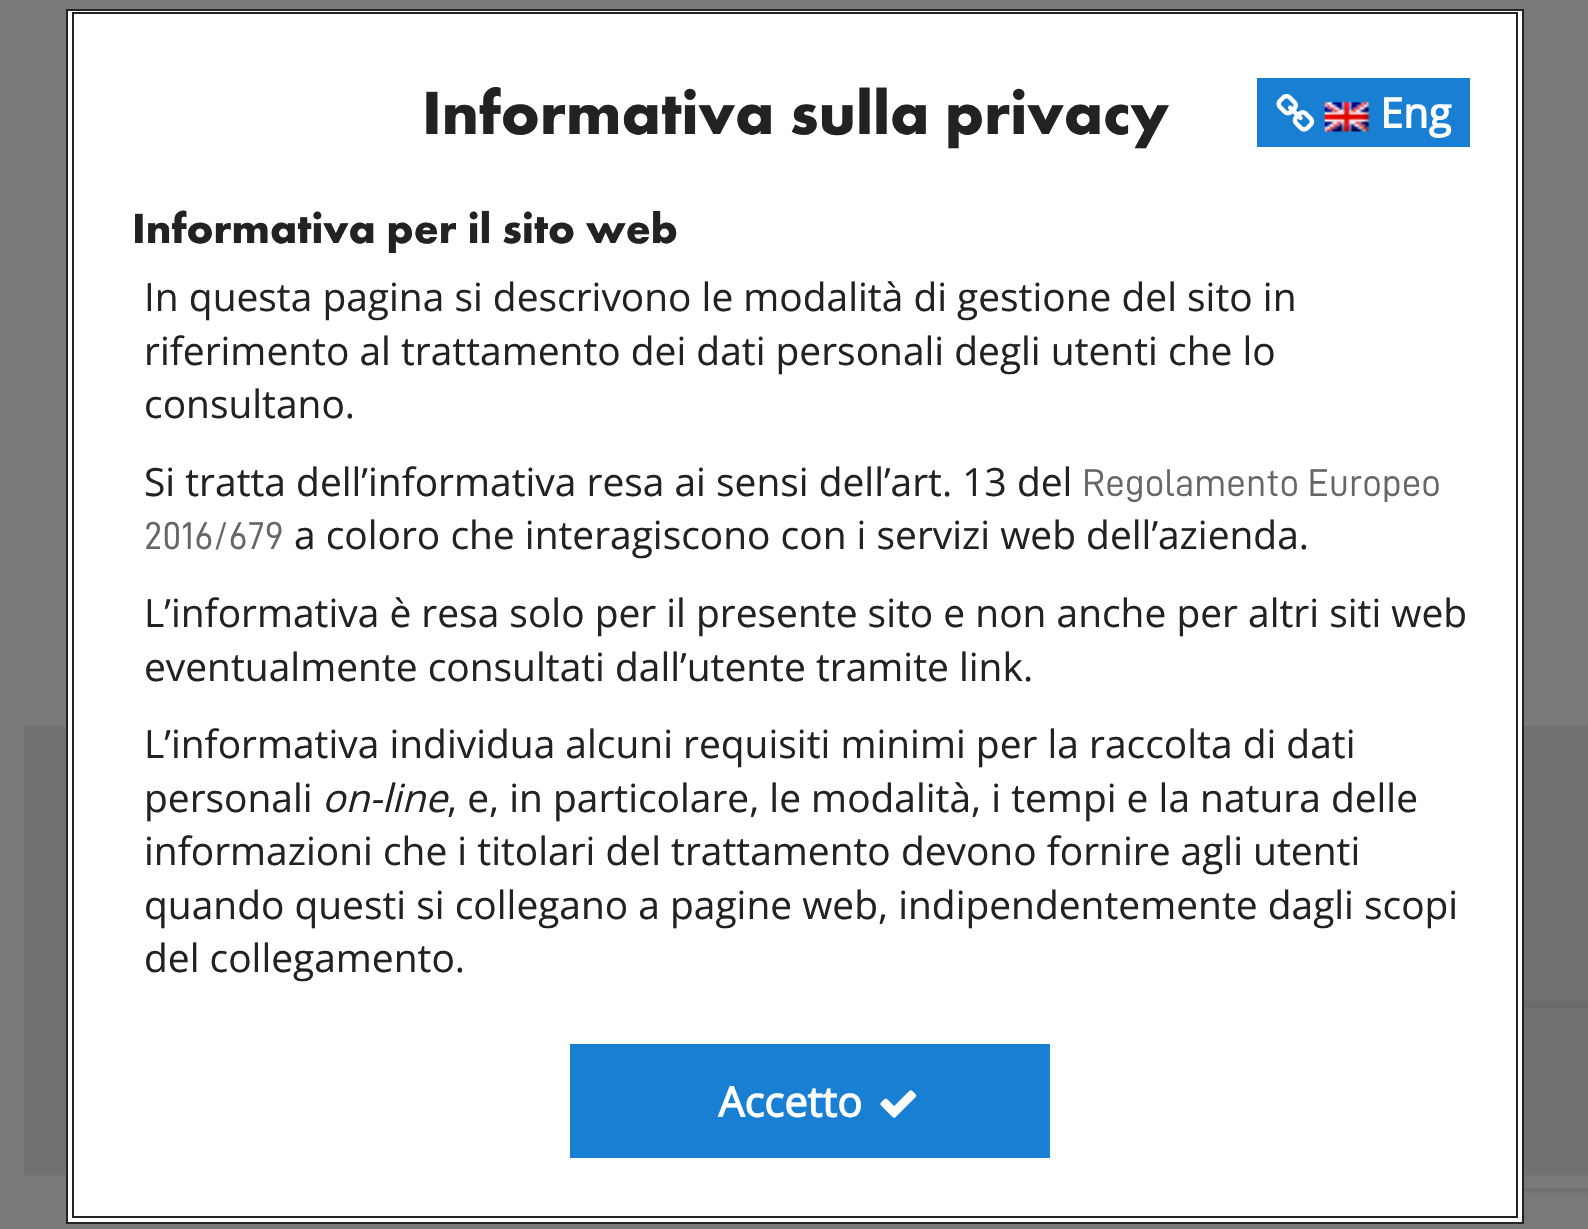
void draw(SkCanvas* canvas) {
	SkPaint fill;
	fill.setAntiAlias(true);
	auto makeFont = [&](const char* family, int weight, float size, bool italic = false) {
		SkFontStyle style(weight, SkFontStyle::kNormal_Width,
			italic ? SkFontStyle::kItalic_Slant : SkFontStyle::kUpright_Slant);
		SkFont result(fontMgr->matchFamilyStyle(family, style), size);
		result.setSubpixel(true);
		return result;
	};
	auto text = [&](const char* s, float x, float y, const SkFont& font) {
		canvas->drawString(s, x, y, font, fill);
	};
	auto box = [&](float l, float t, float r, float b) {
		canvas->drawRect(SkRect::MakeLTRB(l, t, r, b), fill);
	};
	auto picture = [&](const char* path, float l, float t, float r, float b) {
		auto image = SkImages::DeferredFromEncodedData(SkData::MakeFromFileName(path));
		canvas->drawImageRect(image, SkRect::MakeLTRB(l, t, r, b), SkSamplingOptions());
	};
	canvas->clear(0xFF7B7979);
	fill.setColor(0xFF737071);
	box(24, 726, 1588, 1173);
	fill.setColor(0xFF767373);
	box(24, 1173, 1588, 1176);
	canvas->save();
	canvas->clipPath(SkPathBuilder(SkPathFillType::kEvenOdd).moveTo(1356, 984).lineTo(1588, 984).lineTo(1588, 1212).lineTo(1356, 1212).close().moveTo(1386, 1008).lineTo(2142, 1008).cubicTo(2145.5f, 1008, 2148, 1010.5f, 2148, 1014).lineTo(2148, 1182).cubicTo(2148, 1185.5f, 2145.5f, 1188, 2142, 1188).lineTo(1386, 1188).cubicTo(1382.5f, 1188, 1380, 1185.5f, 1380, 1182).lineTo(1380, 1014).cubicTo(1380, 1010.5f, 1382.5f, 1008, 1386, 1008).close().detach(), true);
	fill.setColor(0xFF625F5F);
	fill.setMaskFilter(SkMaskFilter::MakeBlur(kNormal_SkBlurStyle, 7.5f));
	canvas->drawRoundRect(SkRect::MakeLTRB(1380, 1008, 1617, 1188), 6, 6, fill);
	fill.setMaskFilter(nullptr);
	canvas->restore();
	fill.setColor(0xFFFFFFFF);
	canvas->drawRect(SkRect::MakeLTRB(67, 10, 1523, 1223), fill);
	fill.setStyle(SkPaint::kStroke_Style);
	fill.setStrokeWidth(2);
	fill.setColor(0xFF222222);
	canvas->drawRect(SkRect::MakeLTRB(67, 10, 1523, 1223), fill);
	canvas->drawRect(SkRect::MakeLTRB(73, 13, 1517, 1217), fill);
	fill.setStyle(SkPaint::kFill_Style);
	fill.setColor(0xFF197FD2);
	box(1257, 78, 1470, 147);
	picture("image0.png", 1276, 94, 1315, 132);
	picture("image1.png", 1324, 101, 1370, 132);
	box(570, 1044, 1050, 1158);
	picture("image2.png", 880, 1090, 917, 1118);
	fill.setColor(0xFF767373);
	box(1524, 1215, 1530, 1218);
	auto font1 = makeFont("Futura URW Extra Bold", 700, 63.25f);
	fill.setColor(0xFF222222);
	text("Informativa sulla privacy", 422, 134, font1);
	auto font2 = makeFont("Open Sans", 700, 41.5f);
	fill.setColor(0xFFFFFFFF);
	text("Eng", 1380, 128, font2);
	auto font3 = makeFont("Futura URW Extra Bold", 700, 43.75f);
	fill.setColor(0xFF222222);
	text("Informativa per il sito web", 132, 243, font3);
	auto font4 = makeFont("Open Sans", 400, 38.9f);
	text("In questa pagina si descrivono le modalità di gestione del sito in", 144, 311, font4);
	text("riferimento al trattamento dei dati personali degli utenti che lo", 144, 365, font4);
	text("consultano.", 144, 418, font4);
	text("Si tratta dell’informativa resa ai sensi dell’art. 13 del", 144, 496, font4);
	auto font5 = makeFont("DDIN", 400, 38.9f);
	fill.setColor(0xFF666666);
	text("Regolamento Europeo", 1082, 496, font5);
	text("2016/679", 144, 549, font5);
	fill.setColor(0xFF222222);
	text("a coloro che interagiscono con i servizi web dell’azienda.", 294, 549, font4);
	text("L’informativa è resa solo per il presente sito e non anche per altri siti web", 144, 627, font4);
	text("eventualmente consultati dall’utente tramite link.", 144, 681, font4);
	text("L’informativa individua alcuni requisiti minimi per la raccolta di dati", 144, 758, font4);
	text("personali", 144, 812, font4);
	auto font6 = makeFont("Open Sans", 400, 38.9f, true);
	text("on-line", 322, 812, font6);
	text(", e, in particolare, le modalità, i tempi e la natura delle", 447, 812, font4);
	text("informazioni che i titolari del trattamento devono fornire agli utenti", 144, 865, font4);
	text("quando questi si collegano a pagine web, indipendentemente dagli scopi", 144, 919, font4);
	text("del collegamento.", 144, 972, font4);
	fill.setColor(0xFFFFFFFF);
	text("Accetto", 718, 1117, font2);
}
